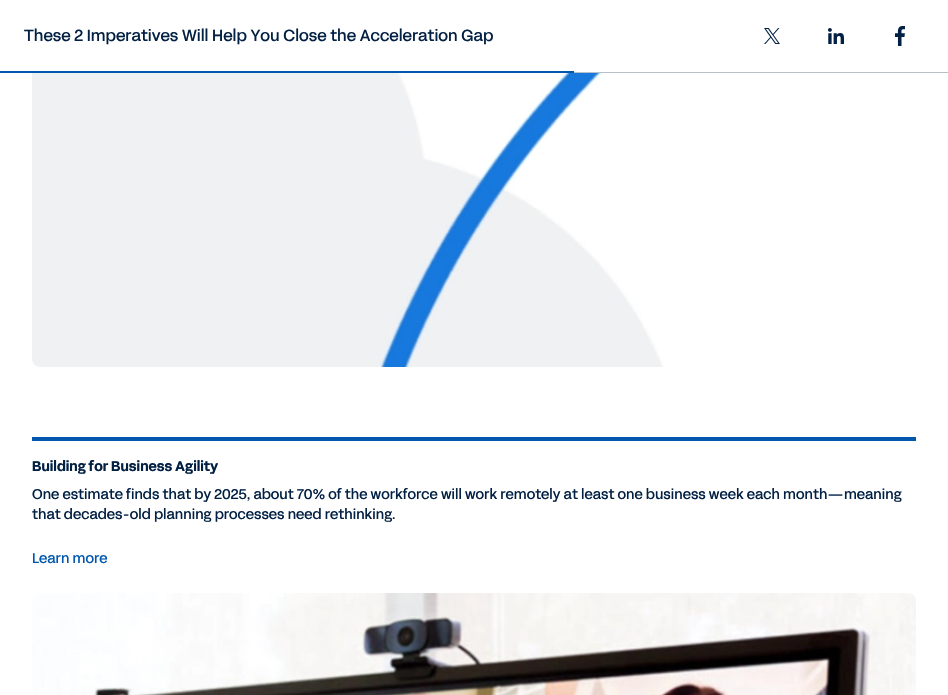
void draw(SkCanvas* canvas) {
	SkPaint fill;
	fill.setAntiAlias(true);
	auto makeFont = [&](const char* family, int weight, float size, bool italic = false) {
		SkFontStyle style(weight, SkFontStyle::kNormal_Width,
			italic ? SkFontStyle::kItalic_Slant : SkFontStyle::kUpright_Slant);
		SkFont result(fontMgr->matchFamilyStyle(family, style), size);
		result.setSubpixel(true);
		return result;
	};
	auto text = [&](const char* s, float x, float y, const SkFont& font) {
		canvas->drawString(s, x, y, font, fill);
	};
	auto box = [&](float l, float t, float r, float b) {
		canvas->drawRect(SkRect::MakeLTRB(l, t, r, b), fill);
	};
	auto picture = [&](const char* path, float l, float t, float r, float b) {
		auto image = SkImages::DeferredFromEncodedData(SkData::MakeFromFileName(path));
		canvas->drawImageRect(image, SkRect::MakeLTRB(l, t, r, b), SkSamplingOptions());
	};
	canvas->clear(0xFFFFFFFF);
	fill.setColor(0xFFB6C1CC);
	box(574, 72, 948, 73);
	picture("image0.png", 764, 28, 780, 44);
	picture("image1.png", 828, 28, 844, 44);
	picture("image2.png", 895, 26, 905, 46);
	fill.setColor(0xFF0057AE);
	box(0, 71, 574, 73);
	picture("image3.png", 32, 73, 684, 367);
	box(32, 437, 916, 441);
	picture("image4.png", 32, 593, 916, 695);
	auto font1 = makeFont("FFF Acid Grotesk", 400, 16);
	fill.setColor(0xFF022043);
	text("These 2 Imperatives Will Help You Close the Acceleration Gap", 24, 41, font1);
	auto font2 = makeFont("FFF Acid Grotesk", 700, 14);
	text("Building for Business Agility", 32, 471, font2);
	auto font3 = makeFont("FFF Acid Grotesk", 400, 14);
	text("One estimate finds that by 2025, about 70% of the workforce will work remotely at least one business week each month—meaning", 32, 499, font3);
	text("that decades-old planning processes need rethinking.", 32, 519, font3);
	fill.setColor(0xFF0057AE);
	text("Learn more", 32, 563, font3);
}
